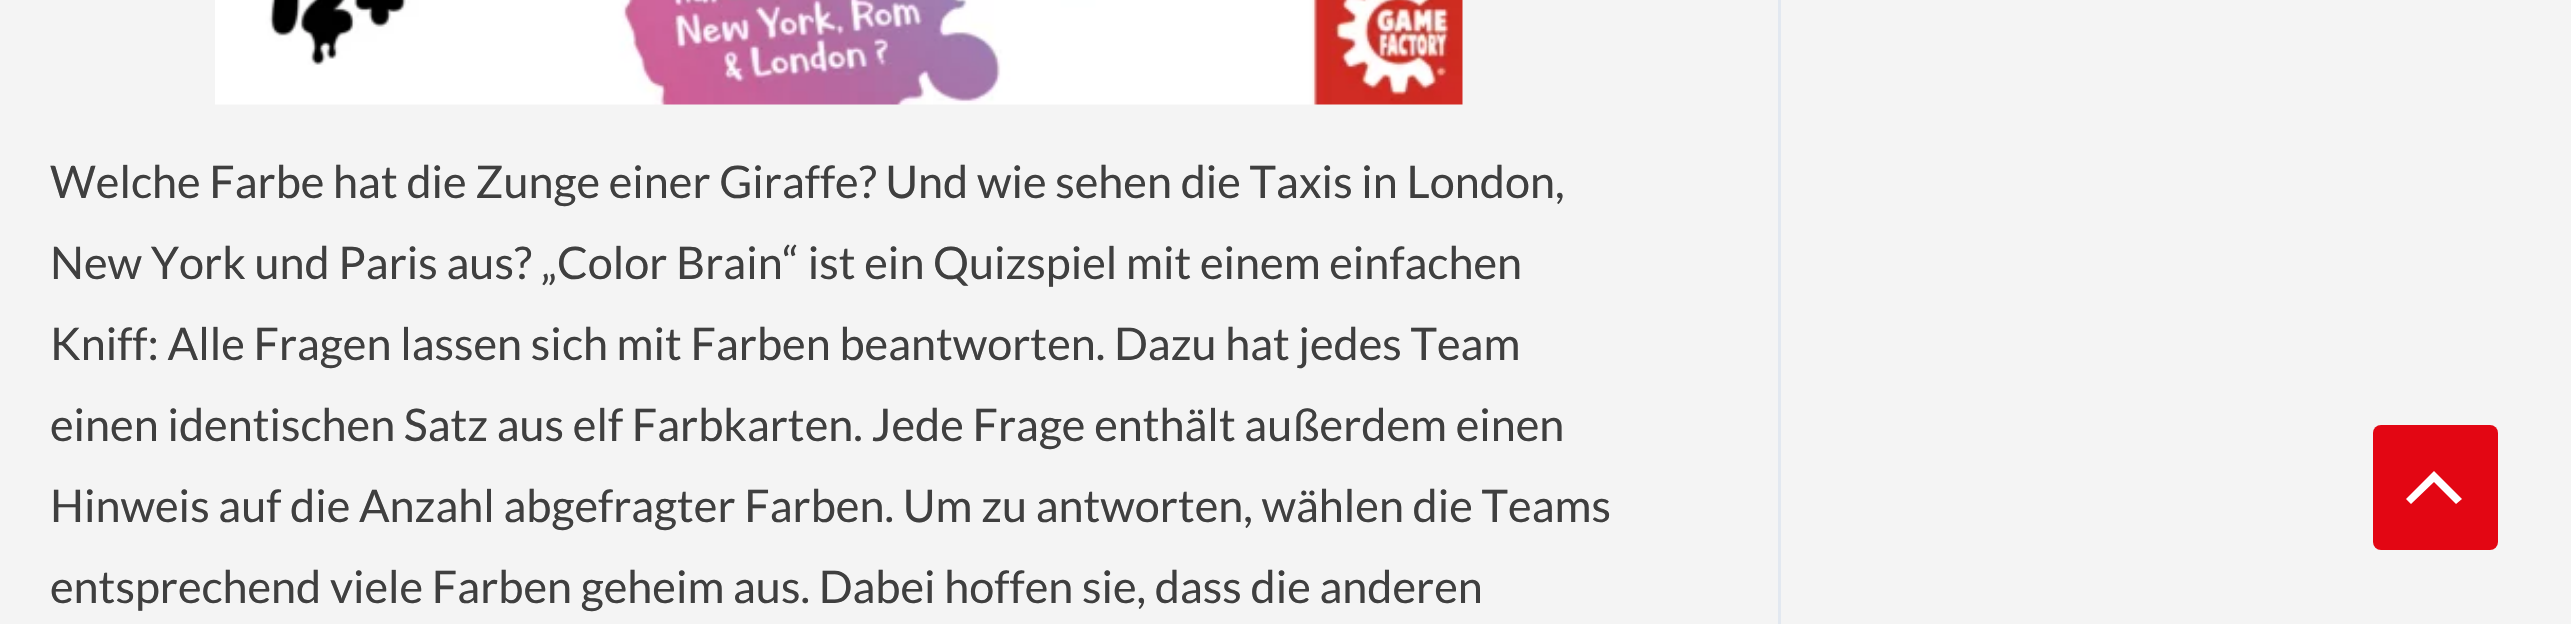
void draw(SkCanvas* canvas) {
	SkPaint fill;
	fill.setAntiAlias(true);
	auto makeFont = [&](const char* family, int weight, float size, bool italic = false) {
		SkFontStyle style(weight, SkFontStyle::kNormal_Width,
			italic ? SkFontStyle::kItalic_Slant : SkFontStyle::kUpright_Slant);
		SkFont result(fontMgr->matchFamilyStyle(family, style), size);
		result.setSubpixel(true);
		return result;
	};
	auto text = [&](const char* s, float x, float y, const SkFont& font) {
		canvas->drawString(s, x, y, font, fill);
	};
	auto box = [&](float l, float t, float r, float b) {
		canvas->drawRect(SkRect::MakeLTRB(l, t, r, b), fill);
	};
	auto roundBox = [&](float l, float t, float r, float b, float radius) {
		canvas->drawRoundRect(SkRect::MakeLTRB(l, t, r, b), radius, radius, fill);
	};
	auto picture = [&](const char* path, float l, float t, float r, float b) {
		auto image = SkImages::DeferredFromEncodedData(SkData::MakeFromFileName(path));
		canvas->drawImageRect(image, SkRect::MakeLTRB(l, t, r, b), SkSamplingOptions());
	};
	canvas->clear(0xFFF4F4F4);
	fill.setColor(0xFFE2E8F0);
	box(1778, 0, 1781, 624);
	picture("image0.png", 215, 0, 1463, 105);
	fill.setColor(0xFFE30613);
	roundBox(2373, 425, 2498, 550, 8);
	fill.setColor(0xFFFFFFFF);
	canvas->drawPath(SkPathBuilder().moveTo(2462, 499).lineTo(2434, 471).lineTo(2406, 499).lineTo(2411, 504).lineTo(2434, 482).lineTo(2456, 504).close().detach(), fill);
	auto font1 = makeFont("Lato", 400, 45);
	fill.setColor(0xFF3F3F3F);
	text("Welche Farbe hat die Zunge einer Giraffe? Und wie sehen die Taxis in London,", 50, 198, font1);
	text("New York und Paris aus? „Color Brain“ ist ein Quizspiel mit einem einfachen", 50, 279, font1);
	text("Kniff: Alle Fragen lassen sich mit Farben beantworten. Dazu hat jedes Team", 50, 360, font1);
	text("einen identischen Satz aus elf Farbkarten. Jede Frage enthält außerdem einen", 50, 441, font1);
	text("Hinweis auf die Anzahl abgefragter Farben. Um zu antworten, wählen die Teams", 50, 522, font1);
	text("entsprechend viele Farben geheim aus. Dabei hoffen sie, dass die anderen", 50, 603, font1);
}
